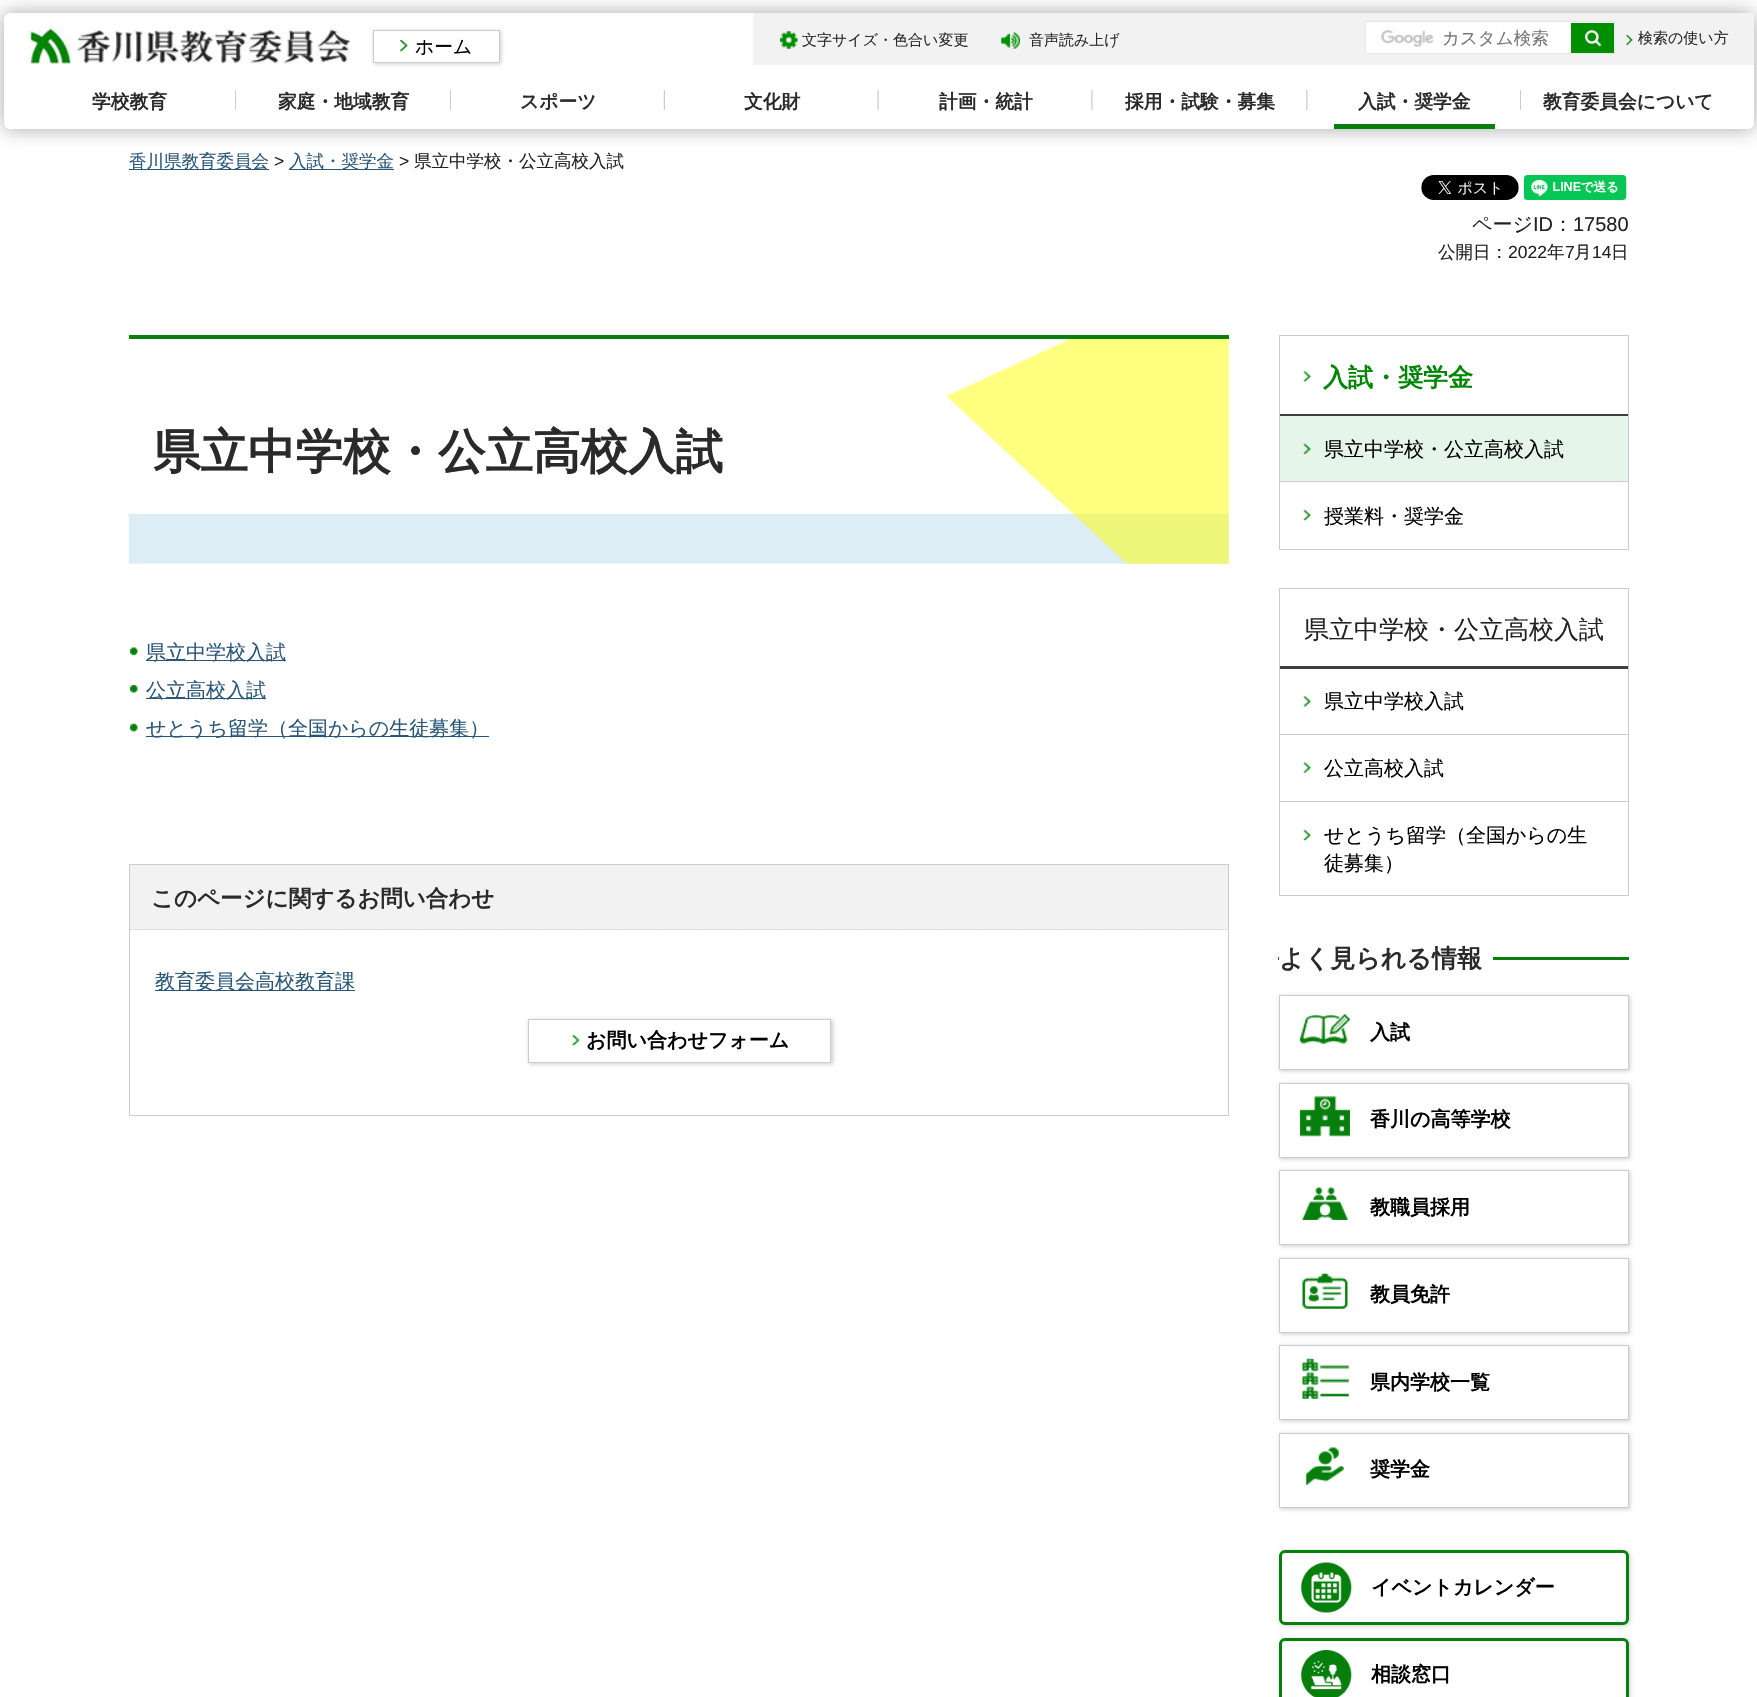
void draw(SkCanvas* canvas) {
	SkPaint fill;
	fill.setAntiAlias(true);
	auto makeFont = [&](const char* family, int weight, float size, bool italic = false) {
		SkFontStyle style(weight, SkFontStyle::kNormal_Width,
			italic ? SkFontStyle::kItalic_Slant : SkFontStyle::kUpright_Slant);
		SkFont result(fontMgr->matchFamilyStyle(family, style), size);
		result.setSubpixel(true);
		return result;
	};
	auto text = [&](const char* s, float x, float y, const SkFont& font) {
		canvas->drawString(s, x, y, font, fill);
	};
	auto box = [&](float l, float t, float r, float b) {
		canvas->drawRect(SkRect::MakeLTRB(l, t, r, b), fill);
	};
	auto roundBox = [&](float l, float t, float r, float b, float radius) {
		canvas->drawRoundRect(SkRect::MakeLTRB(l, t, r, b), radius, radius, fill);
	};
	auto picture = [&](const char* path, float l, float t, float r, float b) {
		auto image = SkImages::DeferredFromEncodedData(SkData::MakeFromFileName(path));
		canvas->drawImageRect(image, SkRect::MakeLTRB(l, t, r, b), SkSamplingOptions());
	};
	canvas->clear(0xFFFFFFFF);
	fill.setColor(0x59000000);
	fill.setMaskFilter(SkMaskFilter::MakeBlur(kNormal_SkBlurStyle, 9.5f));
	canvas->drawRoundRect(SkRect::MakeLTRB(4, 13, 1754, 129), 6, 6, fill);
	fill.setMaskFilter(nullptr);
	fill.setColor(0xFFFFFFFF);
	roundBox(4, 13, 1754, 129, 6);
	picture("image0.png", 27, 26, 350, 65);
	canvas->save();
	canvas->clipPath(SkPathBuilder(SkPathFillType::kEvenOdd).moveTo(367, 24).lineTo(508, 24).lineTo(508, 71).lineTo(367, 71).close().moveTo(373, 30).lineTo(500, 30).lineTo(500, 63).lineTo(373, 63).close().detach(), true);
	fill.setColor(0x330B0205);
	fill.setMaskFilter(SkMaskFilter::MakeBlur(kNormal_SkBlurStyle, 2));
	canvas->drawRect(SkRect::MakeLTRB(374, 31, 501, 64), fill);
	fill.setMaskFilter(nullptr);
	canvas->restore();
	picture("image1.png", 400, 40, 408, 52);
	fill.setStyle(SkPaint::kStroke_Style);
	fill.setStrokeWidth(1);
	fill.setColor(0xFFCCCCCC);
	canvas->drawRect(SkRect::MakeLTRB(373.5f, 30.5f, 499.5f, 62.5f), fill);
	fill.setStyle(SkPaint::kFill_Style);
	fill.setColor(0xFFF2F2F2);
	box(753, 13, 1754, 65);
	picture("image2.png", 780, 31, 798, 49);
	picture("image3.png", 1001, 32, 1020, 49);
	fill.setColor(0xFFFFFFFF);
	box(1366, 22, 1614, 53);
	picture("image4.png", 1381, 30, 1434, 48);
	fill.setStyle(SkPaint::kStroke_Style);
	fill.setColor(0xFFE6E6E6);
	canvas->drawRect(SkRect::MakeLTRB(1365.5f, 21.5f, 1614.5f, 53.5f), fill);
	fill.setStyle(SkPaint::kFill_Style);
	fill.setColor(0xFF008F00);
	box(1571, 23, 1614, 53);
	picture("image5.png", 1585, 30, 1602, 47);
	picture("image6.png", 1626, 35, 1633, 45);
	picture("image7.png", 235, 90, 236, 110);
	picture("image7.png", 450, 90, 451, 110);
	picture("image8.png", 663, 90, 665, 110);
	picture("image9.png", 877, 90, 879, 110);
	picture("image10.png", 1091, 90, 1093, 110);
	picture("image10.png", 1306, 90, 1308, 110);
	picture("image7.png", 1520, 90, 1521, 110);
	fill.setColor(0xFF067F0C);
	box(1334, 124, 1495, 129);
	fill.setColor(0xFF295676);
	box(129, 169, 269, 170);
	box(289, 169, 394, 170);
	picture("image11.png", 1421, 175, 1519, 200);
	picture("image12.png", 1523, 175, 1627, 200);
	picture("image13.png", 128, 339, 1229, 564);
	fill.setColor(0xFF067F0C);
	box(129, 335, 1229, 339);
	picture("image14.png", 130, 647, 138, 656);
	fill.setColor(0xFF295676);
	box(146, 660, 286, 661);
	picture("image15.png", 130, 685, 138, 693);
	box(146, 698, 266, 699);
	picture("image16.png", 130, 723, 138, 732);
	box(146, 736, 489, 737);
	fill.setStyle(SkPaint::kStroke_Style);
	fill.setColor(0xFFCCCCCC);
	canvas->drawRect(SkRect::MakeLTRB(129.5f, 864.5f, 1228.5f, 1115.5f), fill);
	fill.setStyle(SkPaint::kFill_Style);
	fill.setColor(0xFFF2F2F2);
	box(130, 865, 1228, 930);
	fill.setStyle(SkPaint::kStroke_Style);
	fill.setStrokeWidth(1.2f);
	fill.setColor(0xFFCCCCCC);
	fill.setPathEffect(SkDashPathEffect::Make({{1.25f, 1.25f}}, 0));
	canvas->drawPath(SkPathBuilder().moveTo(130, 929.5f).lineTo(1227.5f, 929.5f).detach(), fill);
	fill.setPathEffect(nullptr);
	fill.setStyle(SkPaint::kFill_Style);
	fill.setColor(0xFF295676);
	box(155, 990, 355, 991);
	canvas->save();
	canvas->clipPath(SkPathBuilder(SkPathFillType::kEvenOdd).moveTo(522, 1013).lineTo(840, 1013).lineTo(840, 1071).lineTo(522, 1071).close().moveTo(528, 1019).lineTo(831, 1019).lineTo(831, 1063).lineTo(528, 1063).close().detach(), true);
	fill.setColor(0x330B0205);
	fill.setMaskFilter(SkMaskFilter::MakeBlur(kNormal_SkBlurStyle, 2));
	canvas->drawRect(SkRect::MakeLTRB(529, 1020, 833, 1064), fill);
	fill.setMaskFilter(nullptr);
	canvas->restore();
	picture("image17.png", 572, 1035, 580, 1046);
	fill.setStyle(SkPaint::kStroke_Style);
	fill.setStrokeWidth(1);
	fill.setColor(0xFFCCCCCC);
	canvas->drawRect(SkRect::MakeLTRB(528.5f, 1019.5f, 830.5f, 1062.5f), fill);
	canvas->drawRect(SkRect::MakeLTRB(1279.5f, 335.5f, 1628.5f, 549.5f), fill);
	fill.setStyle(SkPaint::kFill_Style);
	fill.setColor(0xFF413C3C);
	box(1280, 414, 1628, 416);
	picture("image18.png", 1303, 371, 1312, 383);
	fill.setColor(0xFFCCCCCC);
	box(1280, 481, 1628, 482);
	fill.setColor(0xFFE5F5E9);
	box(1280, 416, 1628, 481);
	picture("image19.png", 1303, 443, 1312, 455);
	picture("image20.png", 1303, 510, 1312, 521);
	fill.setStyle(SkPaint::kStroke_Style);
	fill.setColor(0xFFCCCCCC);
	canvas->drawRect(SkRect::MakeLTRB(1279.5f, 588.5f, 1628.5f, 895.5f), fill);
	fill.setStyle(SkPaint::kFill_Style);
	fill.setColor(0xFF413C3C);
	box(1280, 666, 1628, 669);
	fill.setColor(0xFFCCCCCC);
	box(1280, 734, 1628, 735);
	picture("image18.png", 1303, 696, 1312, 708);
	box(1280, 801, 1628, 802);
	picture("image21.png", 1303, 762, 1312, 774);
	picture("image22.png", 1303, 830, 1312, 841);
	fill.setColor(0xFF067F0C);
	box(1278, 957, 1629, 960);
	fill.setColor(0xFFFFFFFF);
	box(1279, 957, 1493, 960);
	fill.setColor(0x330B0205);
	fill.setMaskFilter(SkMaskFilter::MakeBlur(kNormal_SkBlurStyle, 2));
	canvas->drawRect(SkRect::MakeLTRB(1280, 996, 1630, 1071), fill);
	fill.setMaskFilter(nullptr);
	fill.setColor(0xFFFFFFFF);
	canvas->drawRect(SkRect::MakeLTRB(1279.5f, 995.5f, 1628.5f, 1069.5f), fill);
	fill.setStyle(SkPaint::kStroke_Style);
	fill.setColor(0xFFCCCCCC);
	canvas->drawRect(SkRect::MakeLTRB(1279.5f, 995.5f, 1628.5f, 1069.5f), fill);
	picture("image23.png", 1300, 1013, 1350, 1044);
	fill.setStyle(SkPaint::kFill_Style);
	fill.setColor(0x330B0205);
	fill.setMaskFilter(SkMaskFilter::MakeBlur(kNormal_SkBlurStyle, 2));
	canvas->drawRect(SkRect::MakeLTRB(1280, 1084, 1630, 1159), fill);
	fill.setMaskFilter(nullptr);
	fill.setColor(0xFFFFFFFF);
	canvas->drawRect(SkRect::MakeLTRB(1279.5f, 1083.5f, 1628.5f, 1157.5f), fill);
	fill.setStyle(SkPaint::kStroke_Style);
	fill.setColor(0xFFCCCCCC);
	canvas->drawRect(SkRect::MakeLTRB(1279.5f, 1083.5f, 1628.5f, 1157.5f), fill);
	picture("image24.png", 1300, 1096, 1350, 1137);
	fill.setStyle(SkPaint::kFill_Style);
	fill.setColor(0x330B0205);
	fill.setMaskFilter(SkMaskFilter::MakeBlur(kNormal_SkBlurStyle, 2));
	canvas->drawRect(SkRect::MakeLTRB(1280, 1171, 1630, 1246), fill);
	fill.setMaskFilter(nullptr);
	fill.setColor(0xFFFFFFFF);
	canvas->drawRect(SkRect::MakeLTRB(1279.5f, 1170.5f, 1628.5f, 1244.5f), fill);
	fill.setStyle(SkPaint::kStroke_Style);
	fill.setColor(0xFFCCCCCC);
	canvas->drawRect(SkRect::MakeLTRB(1279.5f, 1170.5f, 1628.5f, 1244.5f), fill);
	picture("image25.png", 1302, 1187, 1348, 1220);
	fill.setStyle(SkPaint::kFill_Style);
	fill.setColor(0x330B0205);
	fill.setMaskFilter(SkMaskFilter::MakeBlur(kNormal_SkBlurStyle, 2));
	canvas->drawRect(SkRect::MakeLTRB(1280, 1259, 1630, 1334), fill);
	fill.setMaskFilter(nullptr);
	fill.setColor(0xFFFFFFFF);
	canvas->drawRect(SkRect::MakeLTRB(1279.5f, 1258.5f, 1628.5f, 1332.5f), fill);
	fill.setStyle(SkPaint::kStroke_Style);
	fill.setColor(0xFFCCCCCC);
	canvas->drawRect(SkRect::MakeLTRB(1279.5f, 1258.5f, 1628.5f, 1332.5f), fill);
	picture("image26.png", 1302, 1273, 1348, 1309);
	fill.setStyle(SkPaint::kFill_Style);
	fill.setColor(0x330B0205);
	fill.setMaskFilter(SkMaskFilter::MakeBlur(kNormal_SkBlurStyle, 2));
	canvas->drawRect(SkRect::MakeLTRB(1280, 1346, 1630, 1421), fill);
	fill.setMaskFilter(nullptr);
	fill.setColor(0xFFFFFFFF);
	canvas->drawRect(SkRect::MakeLTRB(1279.5f, 1345.5f, 1628.5f, 1419.5f), fill);
	fill.setStyle(SkPaint::kStroke_Style);
	fill.setColor(0xFFCCCCCC);
	canvas->drawRect(SkRect::MakeLTRB(1279.5f, 1345.5f, 1628.5f, 1419.5f), fill);
	picture("image27.png", 1302, 1358, 1349, 1399);
	fill.setStyle(SkPaint::kFill_Style);
	fill.setColor(0x330B0205);
	fill.setMaskFilter(SkMaskFilter::MakeBlur(kNormal_SkBlurStyle, 2));
	canvas->drawRect(SkRect::MakeLTRB(1280, 1434, 1630, 1509), fill);
	fill.setMaskFilter(nullptr);
	fill.setColor(0xFFFFFFFF);
	canvas->drawRect(SkRect::MakeLTRB(1279.5f, 1433.5f, 1628.5f, 1507.5f), fill);
	fill.setStyle(SkPaint::kStroke_Style);
	fill.setColor(0xFFCCCCCC);
	canvas->drawRect(SkRect::MakeLTRB(1279.5f, 1433.5f, 1628.5f, 1507.5f), fill);
	picture("image28.png", 1306, 1447, 1344, 1485);
	fill.setStyle(SkPaint::kFill_Style);
	fill.setColor(0x330B0205);
	fill.setMaskFilter(SkMaskFilter::MakeBlur(kNormal_SkBlurStyle, 2));
	canvas->drawRoundRect(SkRect::MakeLTRB(1280, 1551, 1630, 1626), 6, 6, fill);
	fill.setMaskFilter(nullptr);
	fill.setColor(0xFFFFFFFF);
	canvas->drawRoundRect(SkRect::MakeLTRB(1280.5f, 1551.5f, 1627.5f, 1623.5f), 4.5f, 4.5f, fill);
	fill.setStyle(SkPaint::kStroke_Style);
	fill.setStrokeWidth(3);
	fill.setColor(0xFF067F0C);
	canvas->drawRoundRect(SkRect::MakeLTRB(1280.5f, 1551.5f, 1627.5f, 1623.5f), 4.5f, 4.5f, fill);
	picture("image29.png", 1301, 1562, 1352, 1613);
	fill.setStyle(SkPaint::kFill_Style);
	fill.setColor(0x330B0205);
	fill.setMaskFilter(SkMaskFilter::MakeBlur(kNormal_SkBlurStyle, 2));
	canvas->drawRoundRect(SkRect::MakeLTRB(1280, 1639, 1630, 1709), 6, 6, fill);
	fill.setMaskFilter(nullptr);
	fill.setColor(0xFFFFFFFF);
	canvas->drawRoundRect(SkRect::MakeLTRB(1280.5f, 1639.5f, 1627.5f, 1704.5f), 4.5f, 4.5f, fill);
	fill.setStyle(SkPaint::kStroke_Style);
	fill.setColor(0xFF067F0C);
	canvas->drawRoundRect(SkRect::MakeLTRB(1280.5f, 1639.5f, 1627.5f, 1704.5f), 4.5f, 4.5f, fill);
	picture("image30.png", 1301, 1650, 1352, 1697);
	auto font1 = makeFont("WenQuanYi Zen Hei", 500, 18.75f);
	fill.setStyle(SkPaint::kFill_Style);
	fill.setColor(0xFF000000);
	text("ホーム", 415, 53, font1);
	auto font2 = makeFont("WenQuanYi Zen Hei", 500, 15);
	fill.setColor(0xFF2A2A2A);
	text("文字サイズ・色合い変更", 802, 45, font2);
	text("音声読み上げ", 1029, 45, font2);
	auto font3 = makeFont("WenQuanYi Zen Hei", 500, 17.5f);
	fill.setColor(0xFF757575);
	text("カスタム検索", 1442, 44, font3);
	fill.setColor(0xFF2A2A2A);
	text("検索の使い方", 1638, 43, font2);
	auto font4 = makeFont("WenQuanYi Zen Hei", 700, 18.75f);
	text("学校教育", 92, 108, font4);
	text("家庭・地域教育", 278, 108, font4);
	text("スポーツ", 520, 108, font4);
	text("文化財", 744, 108, font4);
	text("計画・統計", 939, 108, font4);
	text("採用・試験・募集", 1125, 108, font4);
	text("入試・奨学金", 1358, 108, font4);
	text("教育委員会について", 1543, 108, font4);
	fill.setColor(0xFF295676);
	text("香川県教育委員会", 129, 167, font3);
	auto font5 = makeFont("Liberation Sans", 400, 17.5f);
	fill.setColor(0xFF222222);
	text(">", 274, 167, font5);
	fill.setColor(0xFF295676);
	text("入試・奨学金", 289, 167, font3);
	fill.setColor(0xFF222222);
	text(">", 399, 167, font5);
	text("県立中学校・公立高校入試", 414, 167, font3);
	auto font6 = makeFont("WenQuanYi Zen Hei", 500, 20);
	text("ページ", 1472, 231, font6);
	auto font7 = makeFont("Liberation Sans", 400, 20);
	text("ID", 1533, 231, font7);
	text("：", 1553, 231, font6);
	text("17580", 1573, 231, font7);
	text("公開日：", 1438, 258, font3);
	text("2022", 1508, 258, font5);
	text("年", 1547, 258, font3);
	text("7", 1565, 258, font5);
	text("月", 1574, 258, font3);
	text("14", 1592, 258, font5);
	text("日", 1611, 258, font3);
	auto font8 = makeFont("WenQuanYi Zen Hei", 700, 47.5f);
	fill.setColor(0xFF2A2A2A);
	text("県立中学校・公立高校入試", 153, 468, font8);
	fill.setColor(0xFF295676);
	text("県立中学校入試", 146, 659, font6);
	text("公立高校入試", 146, 697, font6);
	text("せとうち留学（全国からの生徒募集）", 146, 735, font6);
	auto font9 = makeFont("WenQuanYi Zen Hei", 700, 22.5f);
	fill.setColor(0xFF2A2A2A);
	text("このページに関するお問い合わせ", 151, 906, font9);
	fill.setColor(0xFF295676);
	text("教育委員会高校教育課", 155, 988, font6);
	auto font10 = makeFont("WenQuanYi Zen Hei", 700, 20);
	fill.setColor(0xFF000000);
	text("お問い合わせフォーム", 586, 1047, font10);
	auto font11 = makeFont("WenQuanYi Zen Hei", 700, 25);
	fill.setColor(0xFF008505);
	text("入試・奨学金", 1323, 386, font11);
	fill.setColor(0xFF000000);
	text("県立中学校・公立高校入試", 1324, 456, font6);
	text("授業料・奨学金", 1324, 523, font6);
	auto font12 = makeFont("WenQuanYi Zen Hei", 500, 25);
	fill.setColor(0xFF222222);
	text("県立中学校・公立高校入試", 1304, 638, font12);
	fill.setColor(0xFF000000);
	text("県立中学校入試", 1324, 708, font6);
	text("公立高校入試", 1324, 775, font6);
	text("せとうち留学（全国からの生", 1324, 842, font6);
	text("徒募集）", 1324, 870, font6);
	fill.setColor(0xFF2A2A2A);
	text("よく見られる情報", 1279, 967, font11);
	fill.setColor(0xFF000000);
	text("入試", 1370, 1039, font10);
	text("香川の高等学校", 1370, 1126, font10);
	text("教職員採用", 1370, 1214, font10);
	text("教員免許", 1370, 1301, font10);
	text("県内学校一覧", 1370, 1389, font10);
	text("奨学金", 1370, 1476, font10);
	text("イベントカレンダー", 1371, 1594, font10);
	text("相談窓口", 1371, 1681, font10);
}
